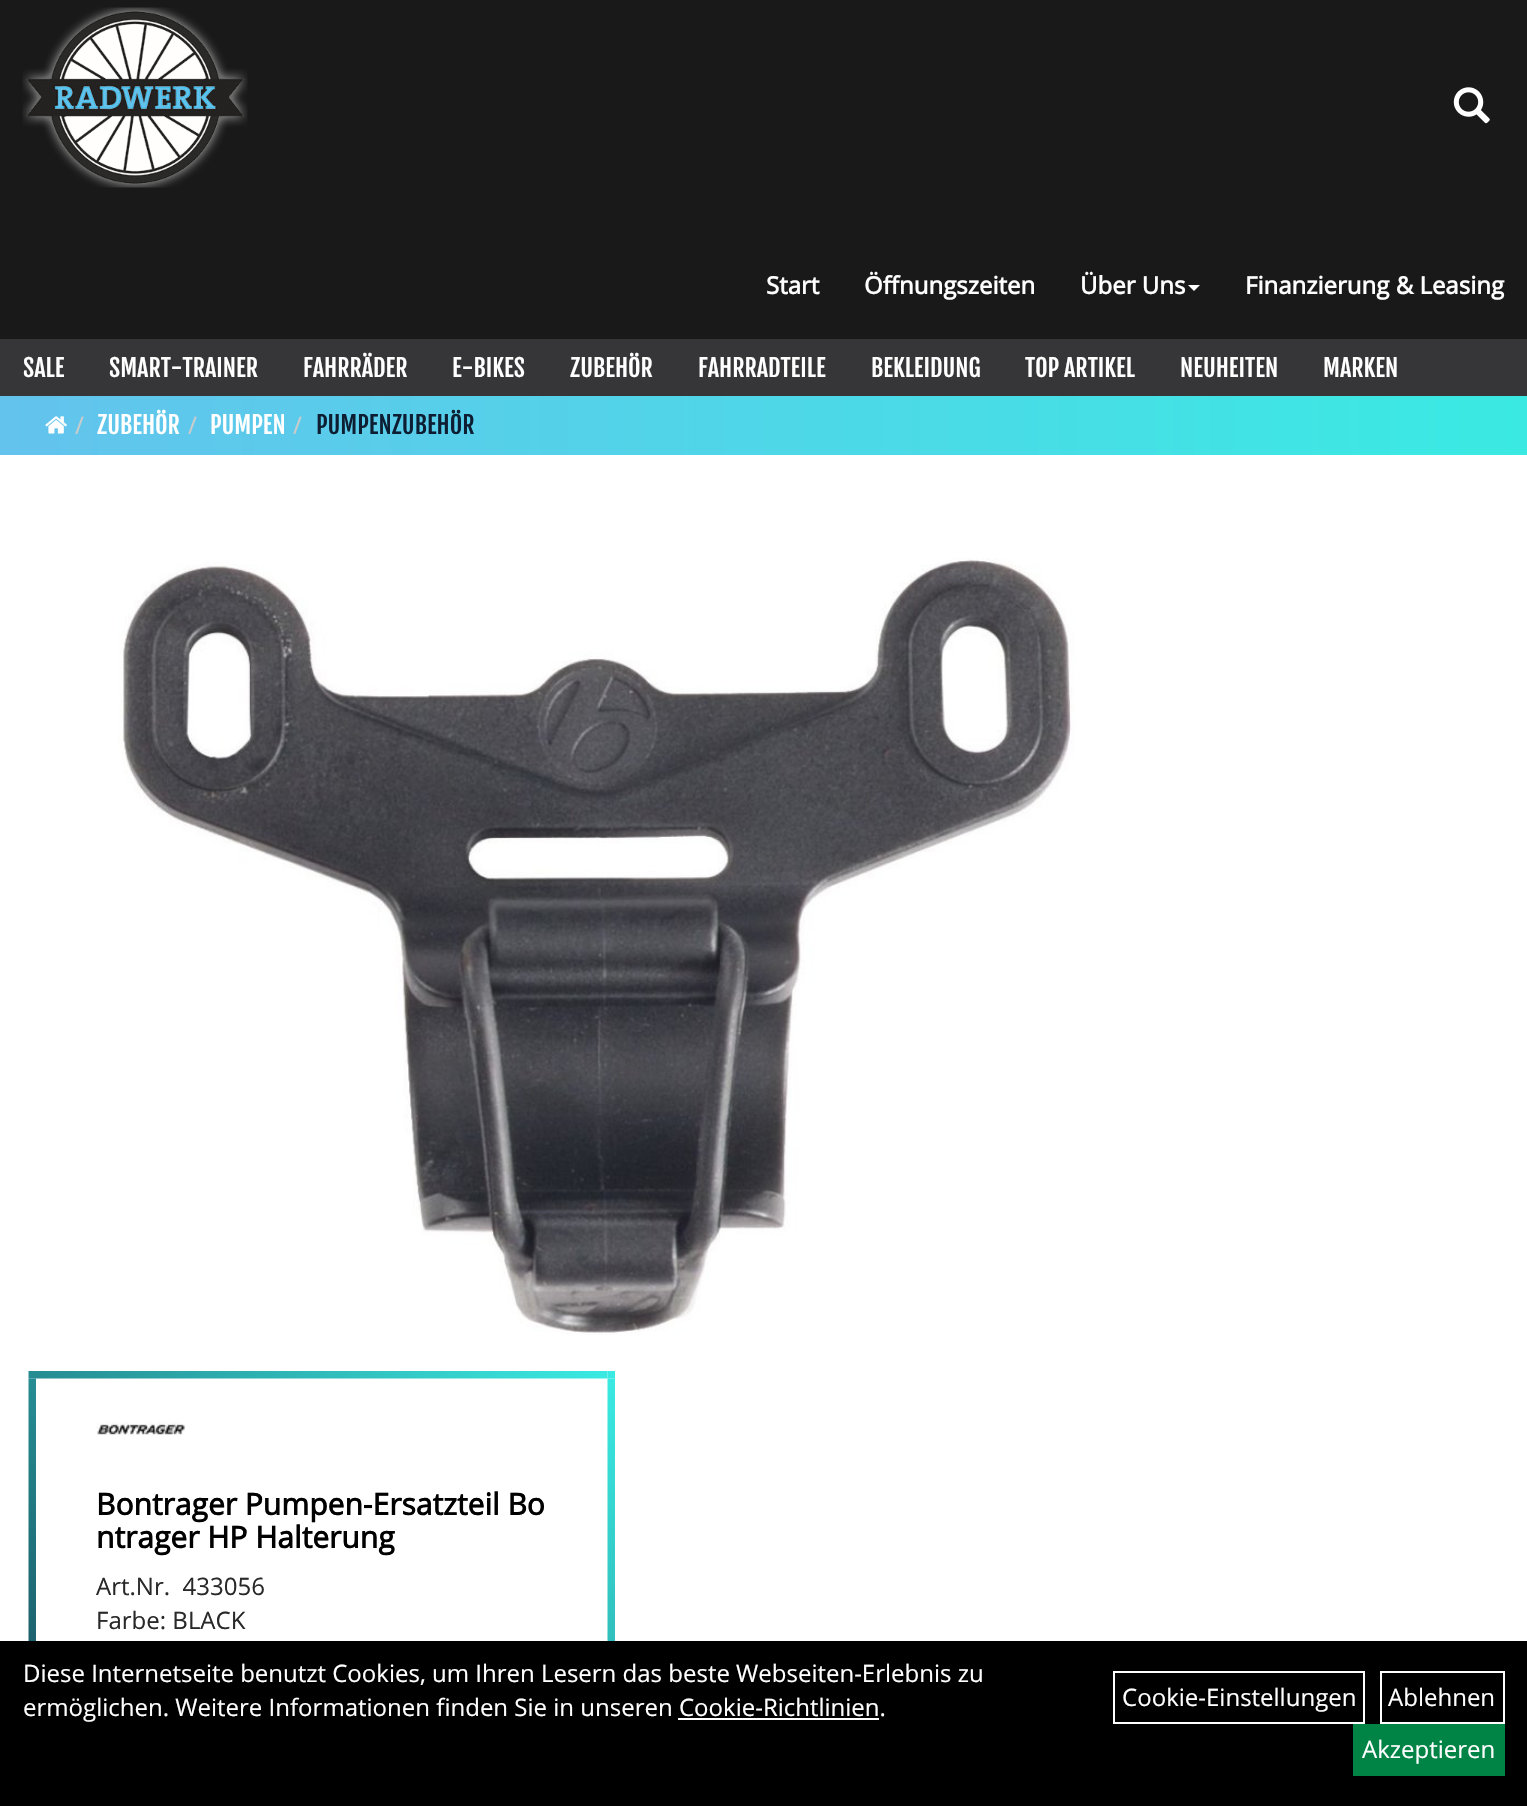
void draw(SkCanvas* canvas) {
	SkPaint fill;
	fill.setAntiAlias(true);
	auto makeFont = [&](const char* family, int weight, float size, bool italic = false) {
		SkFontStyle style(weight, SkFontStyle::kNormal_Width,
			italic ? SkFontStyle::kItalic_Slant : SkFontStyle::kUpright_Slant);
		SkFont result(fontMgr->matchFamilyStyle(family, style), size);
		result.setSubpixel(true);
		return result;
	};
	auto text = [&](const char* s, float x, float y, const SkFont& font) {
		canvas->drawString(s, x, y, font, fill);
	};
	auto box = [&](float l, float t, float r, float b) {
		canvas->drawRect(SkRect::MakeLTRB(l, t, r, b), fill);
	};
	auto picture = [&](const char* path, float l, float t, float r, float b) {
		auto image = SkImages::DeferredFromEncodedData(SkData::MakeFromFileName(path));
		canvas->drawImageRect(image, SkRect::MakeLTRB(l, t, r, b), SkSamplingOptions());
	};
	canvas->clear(0xFFFFFFFF);
	fill.setColor(0xFF1A1919);
	box(0, 0, 1527, 339);
	picture("image0.png", 22, 7, 248, 188);
	picture("image1.png", 1453, 87, 1490, 124);
	fill.setColor(0xFFFFFFFF);
	canvas->drawPath(SkPathBuilder().moveTo(1188, 285).lineTo(1200, 285).lineTo(1194, 291).close().detach(), fill);
	fill.setColor(0xFF363638);
	box(0, 339, 1527, 396);
	{
		const SkColor colors[] = {0xFF63C3ED, 0xFF3AEAE2};
		const float stops[] = {0, 1};
		const SkPoint ends[] = {{0, 425}, {1527, 425}};
		fill.setShader(SkGradientShader::MakeLinear(ends, colors, stops, 2, SkTileMode::kClamp));
		fill.setAlpha(255);
	}
	box(0, 396, 1527, 455);
	picture("image2.png", 45, 416, 67, 434);
	picture("image3.png", 118, 558, 1075, 1335);
	picture("image4.png", 28, 1371, 615, 1641);
	picture("image5.png", 96, 1422, 186, 1435);
	fill.setShader(nullptr);
	fill.setColor(0xFF000000);
	box(0, 1641, 1527, 1806);
	fill.setColor(0xFFFFFFFF);
	box(678, 1718, 879, 1720);
	fill.setStyle(SkPaint::kStroke_Style);
	fill.setStrokeWidth(2);
	canvas->drawRect(SkRect::MakeLTRB(1114, 1672, 1364, 1723), fill);
	canvas->drawRect(SkRect::MakeLTRB(1381, 1672, 1504, 1723), fill);
	fill.setStyle(SkPaint::kFill_Style);
	fill.setColor(0xFF008446);
	box(1353, 1724, 1505, 1776);
	auto font1 = makeFont("Open Sans", 700, 24);
	fill.setColor(0xFFFFFFFF);
	text("Start", 766, 294, font1);
	text("Öffnungszeiten", 864, 294, font1);
	text("Über Uns", 1080, 294, font1);
	text("Finanzierung & Leasing", 1245, 294, font1);
	auto font2 = makeFont("Fjalla One", 400, 24);
	text("SALE", 23, 377, font2);
	text("SMART-TRAINER", 109, 377, font2);
	text("FAHRRÄDER", 303, 377, font2);
	text("E-BIKES", 452, 377, font2);
	text("ZUBEHÖR", 570, 377, font2);
	text("FAHRRADTEILE", 698, 377, font2);
	text("BEKLEIDUNG", 871, 377, font2);
	text("TOP ARTIKEL", 1025, 377, font2);
	text("NEUHEITEN", 1180, 377, font2);
	text("MARKEN", 1323, 377, font2);
	auto font3 = makeFont("Open Sans", 400, 24);
	fill.setColor(0xFFCCCCCC);
	text("/", 75, 434, font3);
	fill.setColor(0xFFFFFFFF);
	text("ZUBEHÖR", 97, 434, font2);
	fill.setColor(0xFFCCCCCC);
	text("/", 188, 434, font3);
	fill.setColor(0xFFFFFFFF);
	text("PUMPEN", 210, 434, font2);
	fill.setColor(0xFFCCCCCC);
	text("/", 293, 434, font3);
	fill.setColor(0xFF0D1E33);
	text("PUMPENZUBEHÖR", 316, 434, font2);
	auto font4 = makeFont("Open Sans", 700, 30);
	fill.setColor(0xFF000000);
	text("Bontrager Pumpen-Ersatzteil Bo", 96, 1515, font4);
	text("ntrager HP Halterung", 96, 1548, font4);
	fill.setColor(0xFF292929);
	text("Art.Nr.  433056", 96, 1595, font3);
	text("Farbe: BLACK", 96, 1629, font3);
	fill.setColor(0xFFFFFFFF);
	text("Diese Internetseite benutzt Cookies, um Ihren Lesern das beste Webseiten-Erlebnis zu", 23, 1682, font3);
	text("ermöglichen. Weitere Informationen finden Sie in unseren Cookie-Richtlinien.", 23, 1716, font3);
	text("Cookie-Einstellungen", 1122, 1706, font3);
	text("Ablehnen", 1388, 1706, font3);
	text("Akzeptieren", 1362, 1758, font3);
}
